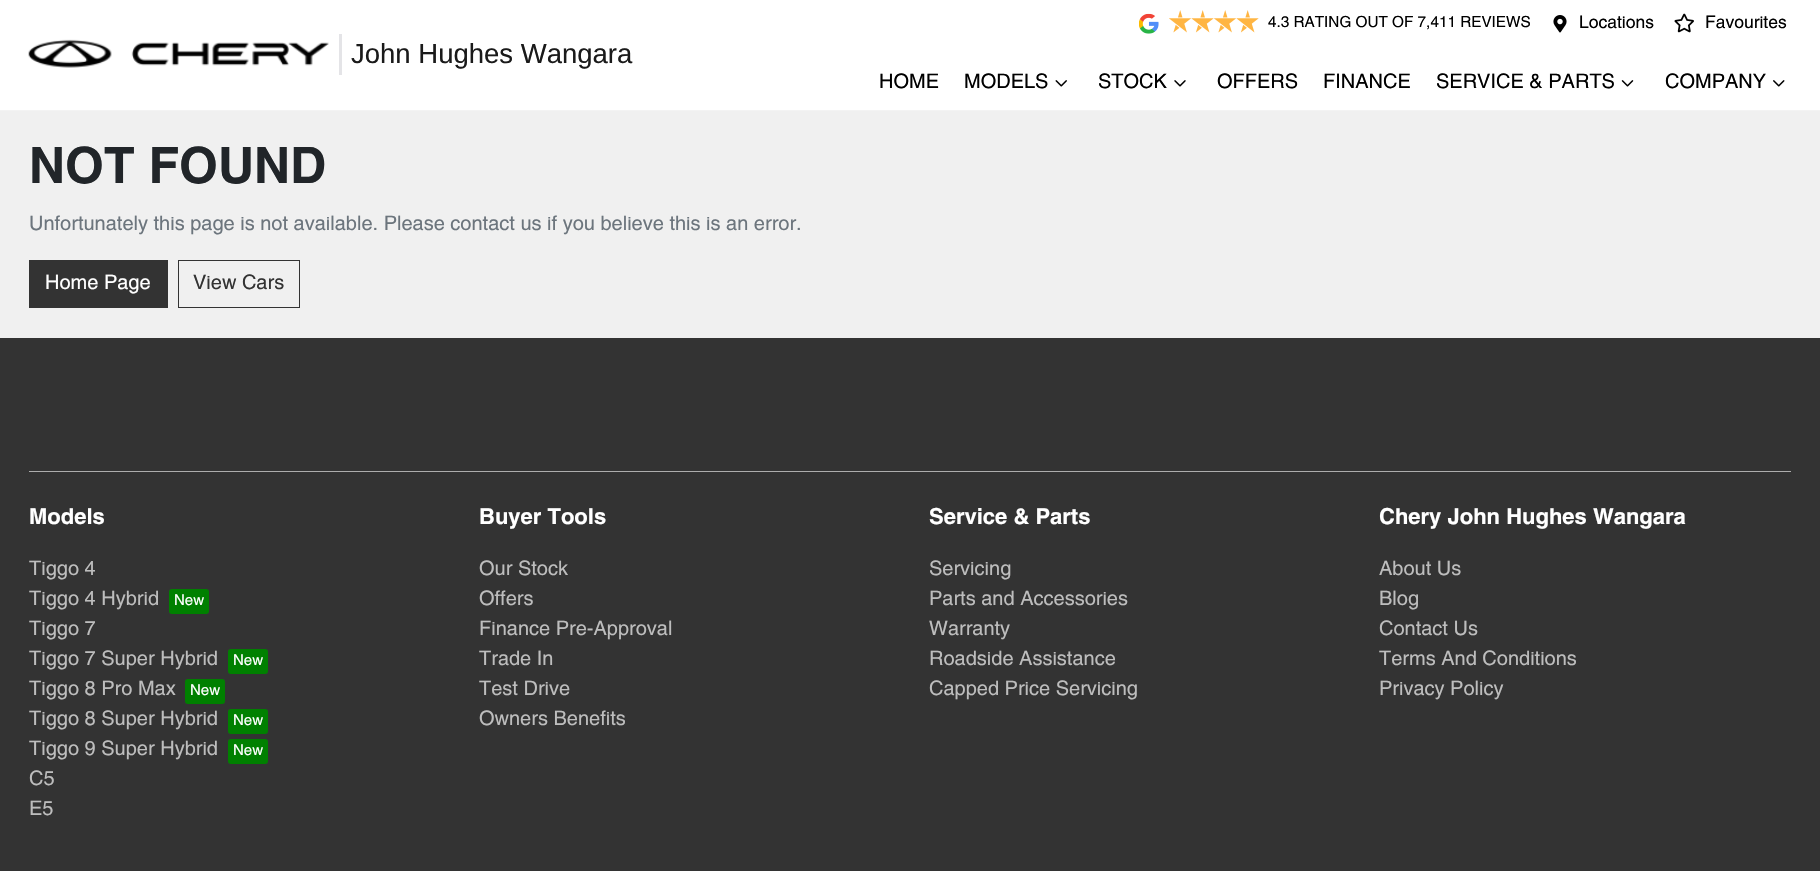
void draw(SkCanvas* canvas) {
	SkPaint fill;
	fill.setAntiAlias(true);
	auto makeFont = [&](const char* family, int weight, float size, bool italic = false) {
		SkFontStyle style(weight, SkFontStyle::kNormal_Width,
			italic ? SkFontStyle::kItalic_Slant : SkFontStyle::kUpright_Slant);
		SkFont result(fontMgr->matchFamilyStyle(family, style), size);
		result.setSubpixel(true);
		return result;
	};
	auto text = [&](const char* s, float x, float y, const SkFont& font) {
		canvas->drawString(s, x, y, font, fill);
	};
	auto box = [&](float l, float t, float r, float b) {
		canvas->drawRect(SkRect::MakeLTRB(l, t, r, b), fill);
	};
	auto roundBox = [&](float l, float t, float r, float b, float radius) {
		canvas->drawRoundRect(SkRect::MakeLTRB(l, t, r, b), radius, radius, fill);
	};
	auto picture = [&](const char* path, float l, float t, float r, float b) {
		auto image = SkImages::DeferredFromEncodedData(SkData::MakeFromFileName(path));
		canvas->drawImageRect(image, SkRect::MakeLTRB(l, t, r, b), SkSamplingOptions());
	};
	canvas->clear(0xFFFFFFFF);
	picture("image0.png", 1139, 13, 1159, 34);
	picture("image1.png", 1169, 10, 1191, 33);
	picture("image2.png", 1191, 10, 1214, 33);
	picture("image1.png", 1214, 10, 1236, 33);
	picture("image2.png", 1236, 10, 1259, 33);
	picture("image3.png", 1553, 15, 1567, 33);
	picture("image4.png", 1674, 13, 1694, 33);
	picture("image5.png", 28, 39, 329, 68);
	fill.setColor(0xFFE4E4E7);
	box(339, 34, 342, 75);
	picture("image6.png", 1055, 80, 1067, 87);
	picture("image7.png", 1174, 80, 1186, 87);
	picture("image8.png", 1621, 80, 1634, 87);
	picture("image9.png", 1773, 80, 1785, 87);
	fill.setColor(0xFFF0F0F0);
	box(0, 111, 1820, 338);
	fill.setColor(0xFFF3F3F3);
	box(0, 110, 1820, 111);
	fill.setColor(0xFF333333);
	box(29, 260, 168, 308);
	fill.setStyle(SkPaint::kStroke_Style);
	fill.setStrokeWidth(1);
	canvas->drawRect(SkRect::MakeLTRB(178.5f, 260.5f, 299.5f, 307.5f), fill);
	fill.setStyle(SkPaint::kFill_Style);
	box(0, 338, 1820, 871);
	fill.setColor(0xFFADADAD);
	box(29, 471, 1791, 472);
	fill.setColor(0xFF008000);
	roundBox(169, 589, 209, 614, 3);
	roundBox(228, 649, 268, 674, 3);
	roundBox(185, 679, 225, 704, 3);
	roundBox(228, 709, 268, 734, 3);
	roundBox(228, 739, 268, 764, 3);
	auto font1 = makeFont("Helvetica", 500, 15.3f);
	fill.setColor(0xFF000000);
	text("4.3 RATING OUT OF 7,411 REVIEWS", 1268, 27, font1);
	auto font2 = makeFont("Helvetica", 500, 17.5f);
	text("Locations", 1579, 28, font2);
	text("Favourites", 1705, 28, font2);
	auto font3 = makeFont("Liberation Sans", 400, 27.5f);
	fill.setColor(0xFF1A1A1A);
	text("John Hughes Wangara", 351, 63, font3);
	auto font4 = makeFont("Helvetica", 500, 20);
	fill.setColor(0xFF000000);
	text("HOME", 879, 88, font4);
	text("MODELS", 964, 88, font4);
	text("STOCK", 1098, 88, font4);
	text("OFFERS", 1217, 88, font4);
	text("FINANCE", 1323, 88, font4);
	text("SERVICE & PARTS", 1436, 88, font4);
	text("COMPANY", 1665, 88, font4);
	auto font5 = makeFont("Helvetica", 700, 50);
	fill.setColor(0xFF212529);
	text("NOT FOUND", 29, 183, font5);
	fill.setColor(0xFF6C757D);
	text("Unfortunately this page is not available. Please contact us if you believe this is an error.", 29, 230, font4);
	fill.setColor(0xFFFFFFFF);
	text("Home Page", 45, 289, font4);
	fill.setColor(0xFF333333);
	text("View Cars", 193, 289, font4);
	auto font6 = makeFont("Helvetica", 700, 22);
	fill.setColor(0xFFFFFFFF);
	text("Models", 29, 524, font6);
	fill.setColor(0xFFBDBDBD);
	text("Tiggo 4", 29, 575, font4);
	text("Tiggo 4 Hybrid", 29, 605, font4);
	auto font7 = makeFont("Helvetica", 500, 15);
	fill.setColor(0xFFFFFFFF);
	text("New", 174, 605, font7);
	fill.setColor(0xFFBDBDBD);
	text("Tiggo 7", 29, 635, font4);
	text("Tiggo 7 Super Hybrid", 29, 665, font4);
	fill.setColor(0xFFFFFFFF);
	text("New", 233, 665, font7);
	fill.setColor(0xFFBDBDBD);
	text("Tiggo 8 Pro Max", 29, 695, font4);
	fill.setColor(0xFFFFFFFF);
	text("New", 190, 695, font7);
	fill.setColor(0xFFBDBDBD);
	text("Tiggo 8 Super Hybrid", 29, 725, font4);
	fill.setColor(0xFFFFFFFF);
	text("New", 233, 725, font7);
	fill.setColor(0xFFBDBDBD);
	text("Tiggo 9 Super Hybrid", 29, 755, font4);
	fill.setColor(0xFFFFFFFF);
	text("New", 233, 755, font7);
	fill.setColor(0xFFBDBDBD);
	text("C5", 29, 785, font4);
	text("E5", 29, 815, font4);
	fill.setColor(0xFFFFFFFF);
	text("Buyer Tools", 479, 524, font6);
	fill.setColor(0xFFBDBDBD);
	text("Our Stock", 479, 575, font4);
	text("Offers", 479, 605, font4);
	text("Finance Pre-Approval", 479, 635, font4);
	text("Trade In", 479, 665, font4);
	text("Test Drive", 479, 695, font4);
	text("Owners Benefits", 479, 725, font4);
	fill.setColor(0xFFFFFFFF);
	text("Service & Parts", 929, 524, font6);
	fill.setColor(0xFFBDBDBD);
	text("Servicing", 929, 575, font4);
	text("Parts and Accessories", 929, 605, font4);
	text("Warranty", 929, 635, font4);
	text("Roadside Assistance", 929, 665, font4);
	text("Capped Price Servicing", 929, 695, font4);
	fill.setColor(0xFFFFFFFF);
	text("Chery John Hughes Wangara", 1379, 524, font6);
	fill.setColor(0xFFBDBDBD);
	text("About Us", 1379, 575, font4);
	text("Blog", 1379, 605, font4);
	text("Contact Us", 1379, 635, font4);
	text("Terms And Conditions", 1379, 665, font4);
	text("Privacy Policy", 1379, 695, font4);
}
